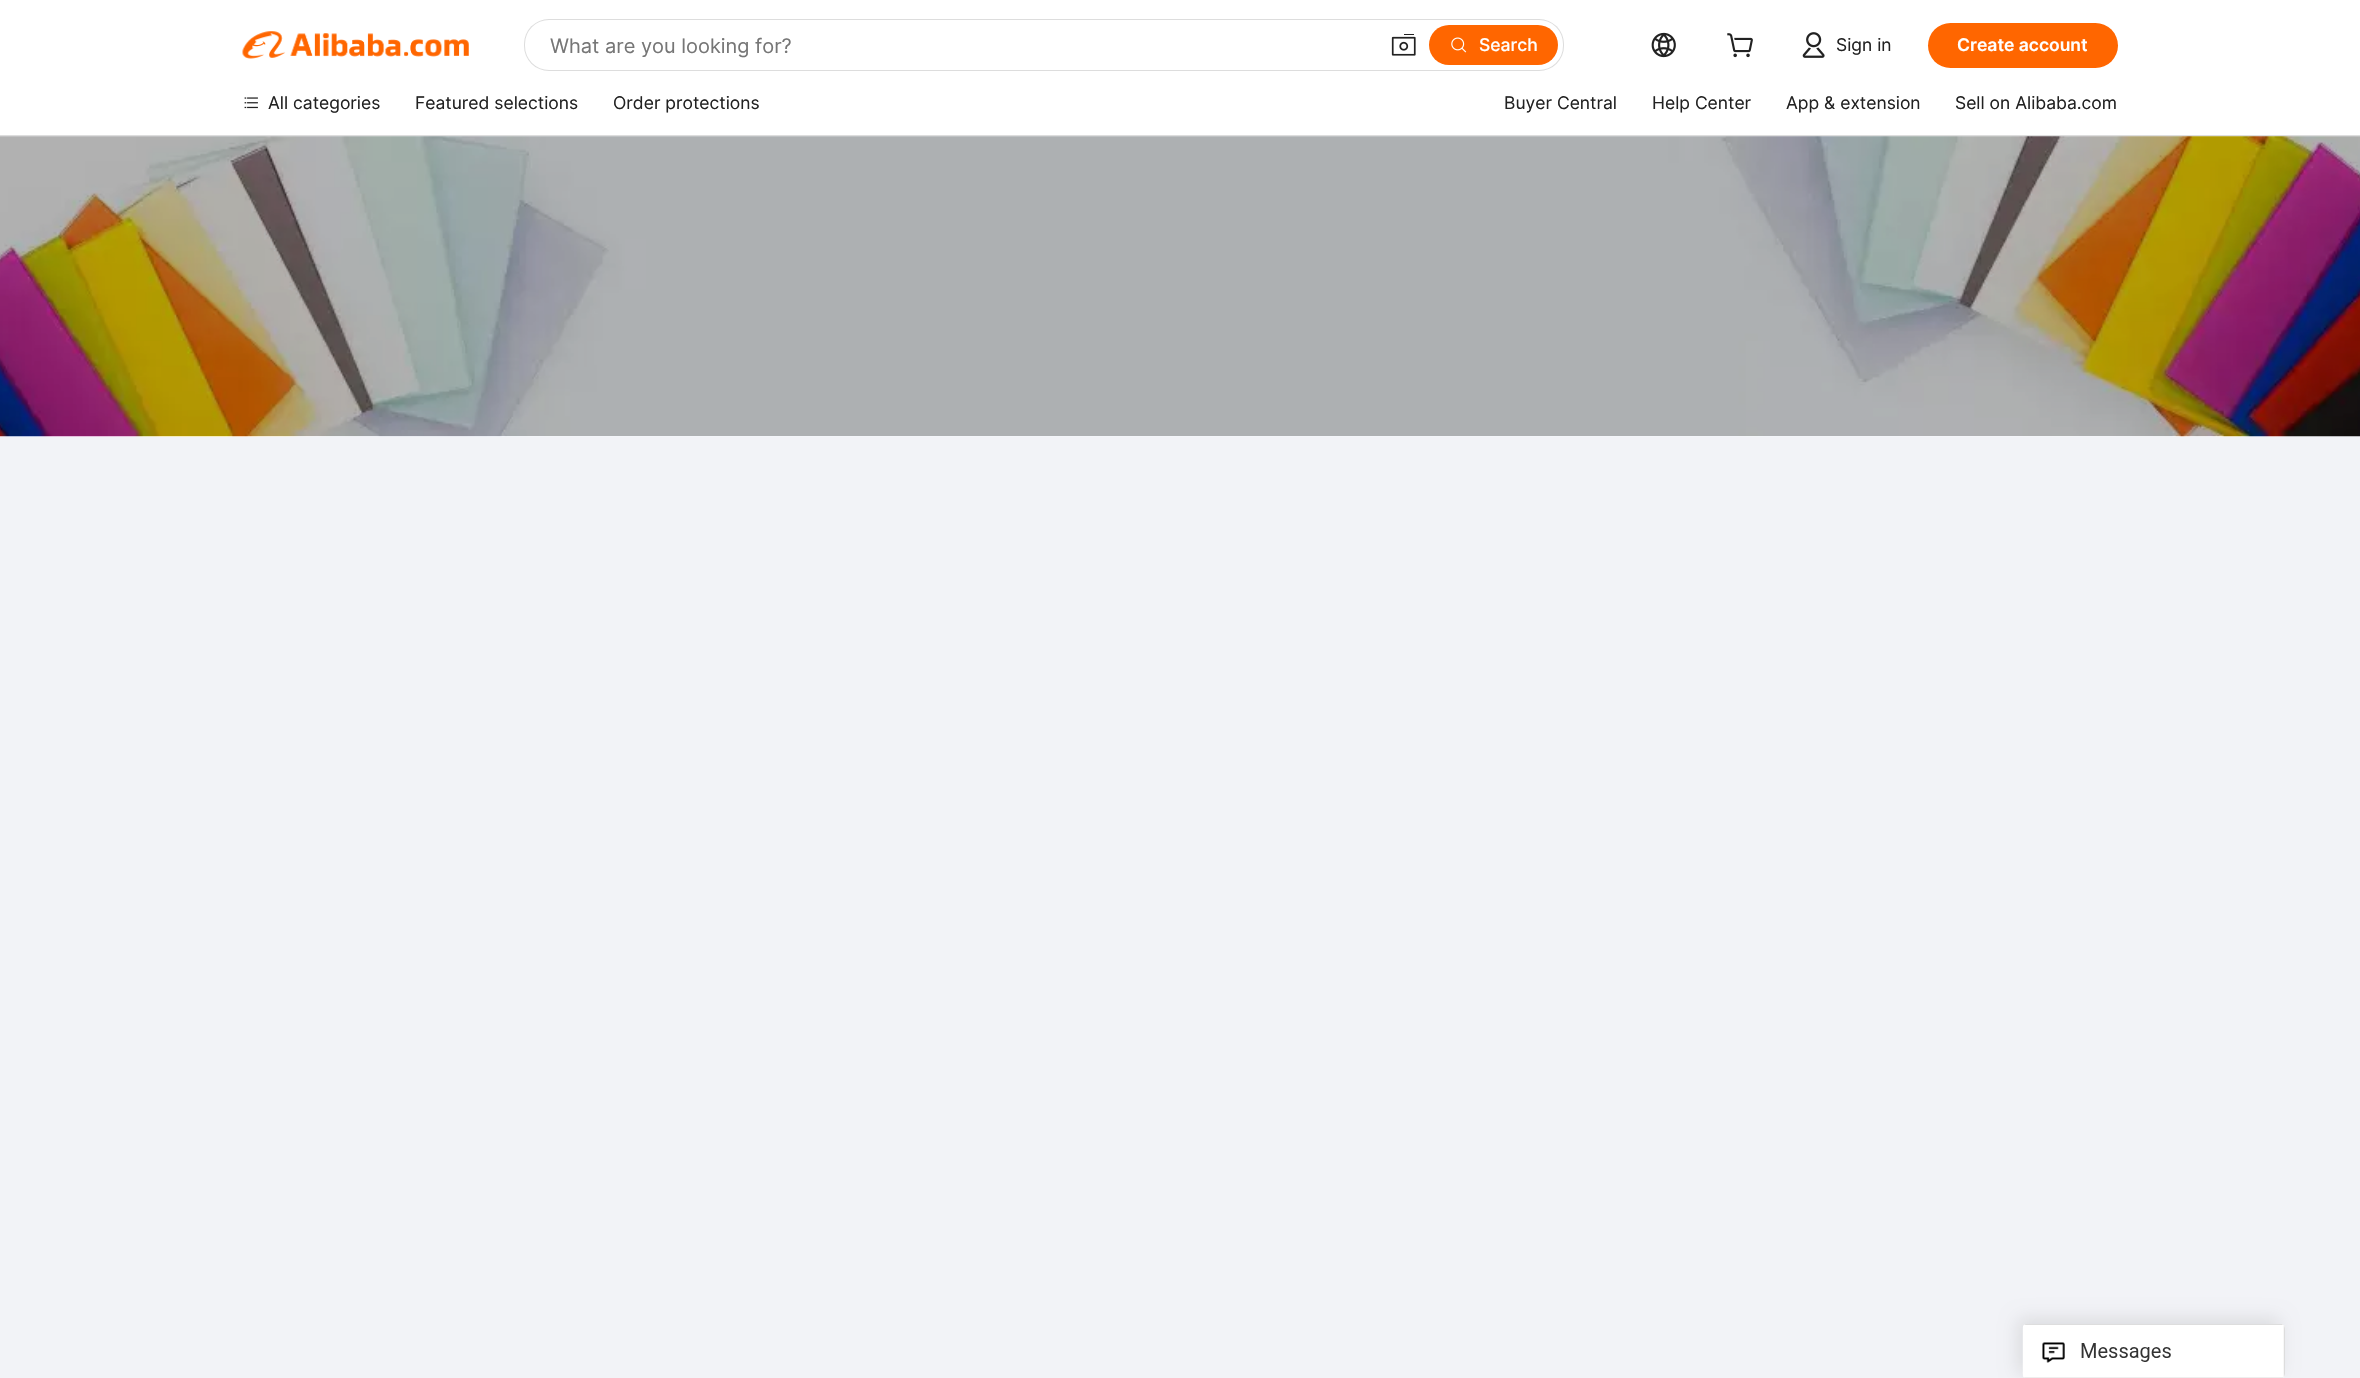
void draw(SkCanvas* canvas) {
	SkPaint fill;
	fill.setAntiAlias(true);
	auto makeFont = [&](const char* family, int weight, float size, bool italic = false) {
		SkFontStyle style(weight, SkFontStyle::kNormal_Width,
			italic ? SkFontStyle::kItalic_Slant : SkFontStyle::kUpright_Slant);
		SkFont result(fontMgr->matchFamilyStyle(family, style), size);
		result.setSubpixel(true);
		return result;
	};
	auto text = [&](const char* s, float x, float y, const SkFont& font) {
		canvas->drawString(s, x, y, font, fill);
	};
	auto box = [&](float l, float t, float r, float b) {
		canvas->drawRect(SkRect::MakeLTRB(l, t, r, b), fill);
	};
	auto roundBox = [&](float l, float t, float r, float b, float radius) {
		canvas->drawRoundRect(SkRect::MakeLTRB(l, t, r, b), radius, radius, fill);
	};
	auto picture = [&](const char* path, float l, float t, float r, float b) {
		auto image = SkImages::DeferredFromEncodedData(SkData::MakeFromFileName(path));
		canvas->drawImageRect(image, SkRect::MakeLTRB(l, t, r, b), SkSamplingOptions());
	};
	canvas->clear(0xFFF2F3F7);
	fill.setColor(0xFFFFFFFF);
	box(0, 0, 2360, 135);
	fill.setColor(0xFFDDDDDD);
	box(0, 135, 2360, 136);
	picture("image0.png", 242, 31, 469, 59);
	roundBox(524, 19, 1564, 71, 25);
	fill.setColor(0xFFFFFFFF);
	roundBox(525, 20, 1563, 70, 24);
	picture("image1.png", 1391, 34, 1416, 56);
	fill.setColor(0xFFFF6600);
	roundBox(1429, 25, 1558, 65, 20);
	picture("image2.png", 1451, 37, 1467, 53);
	picture("image3.png", 1651, 32, 1676, 58);
	picture("image4.png", 1727, 33, 1753, 58);
	picture("image5.png", 1802, 32, 1825, 58);
	roundBox(1928, 23, 2118, 68, 22.5f);
	picture("image6.png", 244, 97, 258, 109);
	picture("image7.png", 0, 136, 2360, 437);
	fill.setColor(0x1A000000);
	fill.setMaskFilter(SkMaskFilter::MakeBlur(kNormal_SkBlurStyle, 9));
	canvas->drawRoundRect(SkRect::MakeLTRB(2018, 1319, 2280, 1374), 5, 5, fill);
	fill.setMaskFilter(nullptr);
	picture("image8.png", 2022, 1324, 2285, 1378);
	auto font1 = makeFont("Inter", 400, 20);
	fill.setColor(0xFF767676);
	text("What are you looking for?", 550, 53, font1);
	auto font2 = makeFont("Inter", 500, 17.5f);
	fill.setColor(0xFFFFFFFF);
	text("Search", 1479, 51, font2);
	auto font3 = makeFont("Inter", 400, 17.5f);
	fill.setColor(0xFF222222);
	text("Sign in", 1836, 51, font3);
	auto font4 = makeFont("Inter", 600, 17.5f);
	fill.setColor(0xFFFFFFFF);
	text("Create account", 1957, 51, font4);
	fill.setColor(0xFF222222);
	text("All categories", 268, 109, font3);
	text("Featured selections", 415, 109, font3);
	text("Order protections", 613, 109, font3);
	text("Buyer Central", 1504, 109, font3);
	text("Help Center", 1652, 109, font3);
	text("App & extension", 1786, 109, font3);
	text("Sell on Alibaba.com", 1955, 109, font3);
}
